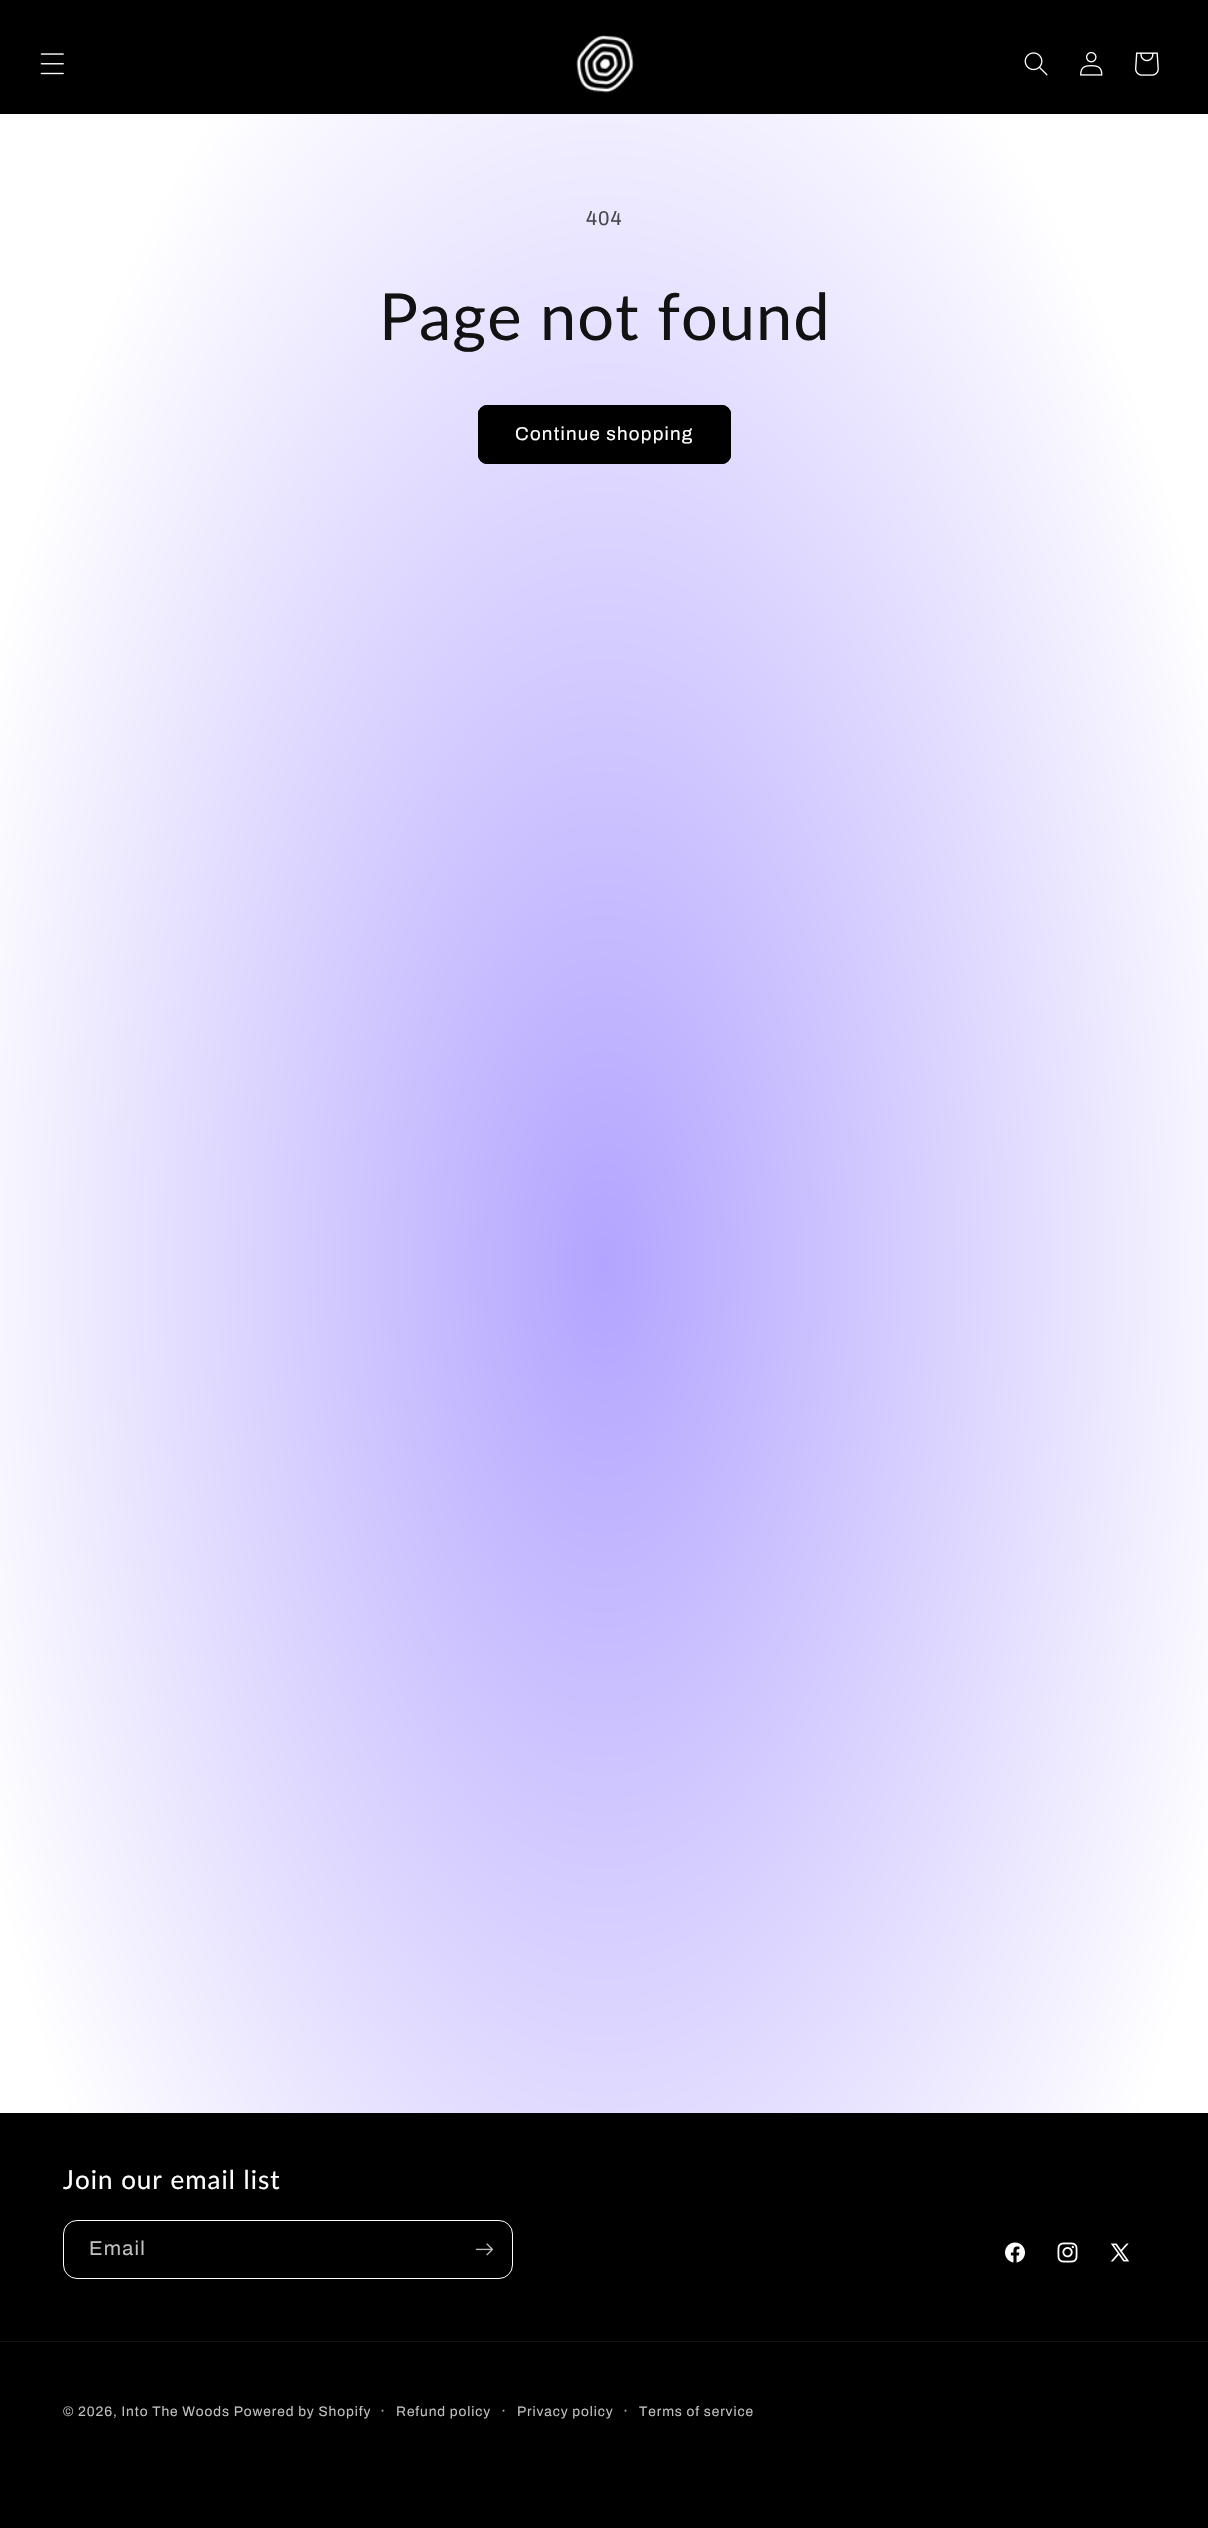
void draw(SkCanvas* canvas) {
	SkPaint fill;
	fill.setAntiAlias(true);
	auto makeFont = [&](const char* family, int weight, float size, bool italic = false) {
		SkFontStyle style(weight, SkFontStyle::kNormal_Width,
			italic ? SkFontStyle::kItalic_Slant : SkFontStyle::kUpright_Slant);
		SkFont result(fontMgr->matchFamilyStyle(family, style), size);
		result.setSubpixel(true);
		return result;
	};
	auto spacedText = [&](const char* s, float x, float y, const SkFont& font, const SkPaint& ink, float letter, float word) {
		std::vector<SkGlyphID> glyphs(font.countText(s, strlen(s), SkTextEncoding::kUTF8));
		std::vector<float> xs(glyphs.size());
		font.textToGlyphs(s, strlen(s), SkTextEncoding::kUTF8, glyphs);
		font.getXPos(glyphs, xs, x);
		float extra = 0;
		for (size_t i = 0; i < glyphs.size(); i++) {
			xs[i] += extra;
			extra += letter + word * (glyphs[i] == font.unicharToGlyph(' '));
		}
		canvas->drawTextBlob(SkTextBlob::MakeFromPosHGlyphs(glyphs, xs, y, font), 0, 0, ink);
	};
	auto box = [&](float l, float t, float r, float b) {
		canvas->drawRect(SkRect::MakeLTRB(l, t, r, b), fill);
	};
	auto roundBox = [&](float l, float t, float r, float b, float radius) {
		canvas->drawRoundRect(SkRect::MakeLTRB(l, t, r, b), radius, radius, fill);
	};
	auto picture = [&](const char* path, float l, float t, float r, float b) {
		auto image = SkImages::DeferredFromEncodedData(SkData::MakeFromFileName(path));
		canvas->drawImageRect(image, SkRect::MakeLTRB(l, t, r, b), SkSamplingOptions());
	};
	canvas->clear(0xFFFFFFFF);
	{
		const SkColor colors[] = {0xFFB3A4FF, 0xFFFFFFFF, 0xFFFFFFFF};
		const float stops[] = {0, 0.79f, 0.97f};
		SkMatrix m = SkMatrix::Translate(604, 1264).preScale(855, 1788);
		fill.setShader(SkGradientShader::MakeRadial({0, 0}, 1, colors, stops, 3, SkTileMode::kClamp, 0, &m));
		fill.setAlpha(255);
	}
	box(0, 114, 1208, 2113);
	fill.setShader(nullptr);
	fill.setColor(0xFF000000);
	box(0, 0, 1208, 114);
	picture("image0.png", 40, 53, 64, 75);
	picture("image1.png", 576, 35, 634, 93);
	picture("image2.png", 1024, 52, 1048, 76);
	picture("image3.png", 1080, 51, 1103, 76);
	picture("image4.png", 1135, 52, 1159, 76);
	roundBox(478, 405, 731, 464, 9);
	fill.setStyle(SkPaint::kStroke_Style);
	fill.setStrokeWidth(1);
	canvas->drawRoundRect(SkRect::MakeLTRB(478.5f, 405.5f, 730.5f, 463.5f), 8.5f, 8.5f, fill);
	fill.setStyle(SkPaint::kFill_Style);
	box(0, 2113, 1208, 2528);
	fill.setStyle(SkPaint::kStroke_Style);
	fill.setColor(0xFFFFFFFF);
	canvas->drawRoundRect(SkRect::MakeLTRB(63.5f, 2220.5f, 512.5f, 2278.5f), 13.5f, 13.5f, fill);
	picture("image5.png", 475, 2243, 493, 2256);
	picture("image6.png", 1005, 2242, 1025, 2263);
	picture("image7.png", 1057, 2242, 1078, 2263);
	picture("image8.png", 1110, 2243, 1130, 2262);
	fill.setStyle(SkPaint::kFill_Style);
	fill.setColor(0xFF141414);
	box(0, 2341, 1208, 2342);
	auto font1 = makeFont("Archivo", 400, 20);
	fill.setColor(0xFF48484D);
	spacedText("404", 586, 225, font1, fill, 1, 0);
	auto font2 = makeFont("Lato", 400, 65);
	fill.setColor(0xFF121212);
	spacedText("Page not found", 379, 340, font2, fill, 1, 0);
	auto font3 = makeFont("Archivo", 400, 18.75f);
	fill.setColor(0xFFFFFFFF);
	spacedText("Continue shopping", 515, 440, font3, fill, 1.25f, 0);
	auto font4 = makeFont("Lato", 400, 26);
	spacedText("Join our email list", 63, 2189, font4, fill, 1, 0);
	fill.setColor(0xFFBFBFBF);
	spacedText("Email", 89, 2255, font1, fill, 1.25f, 0);
	auto font5 = makeFont("Archivo", 400, 13.75f);
	spacedText("© 2026, Into The Woods Powered by Shopify", 63, 2416, font5, fill, 0.9f, 0);
	auto font6 = makeFont("Archivo", 400, 15);
	spacedText("·", 380, 2416, font6, fill, 0.9f, 0);
	spacedText("Refund policy", 396, 2416, font5, fill, 0.9f, 0);
	spacedText("·", 501, 2416, font6, fill, 0.9f, 0);
	spacedText("Privacy policy", 517, 2416, font5, fill, 0.9f, 0);
	spacedText("·", 623, 2416, font6, fill, 0.9f, 0);
	spacedText("Terms of service", 639, 2416, font5, fill, 0.9f, 0);
}
